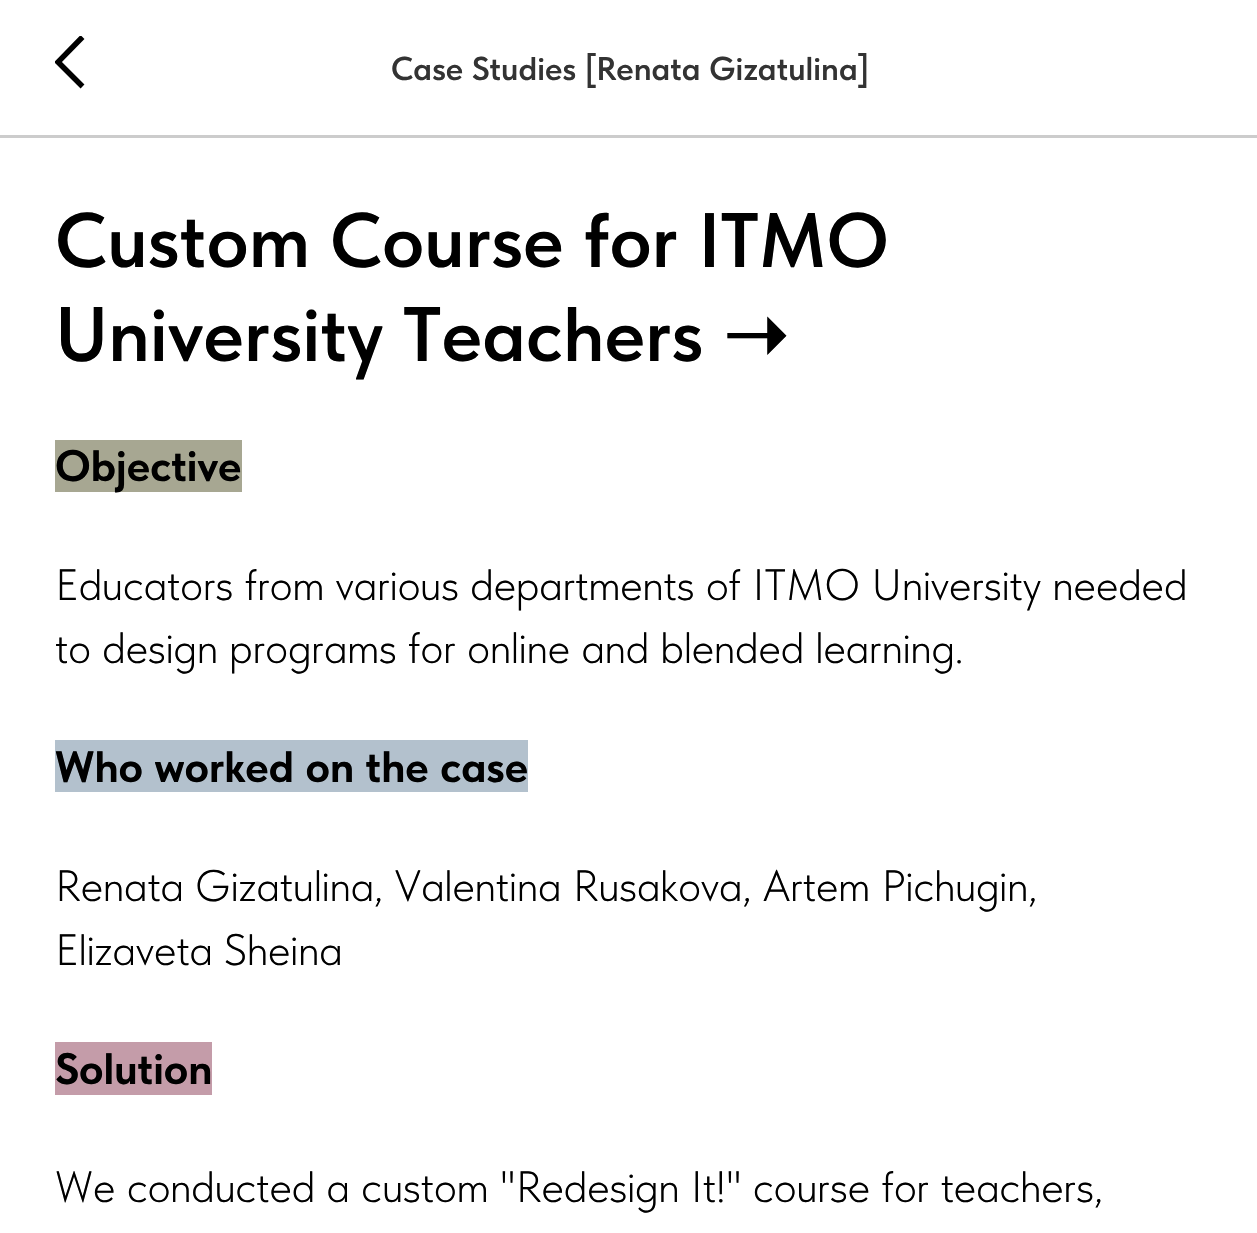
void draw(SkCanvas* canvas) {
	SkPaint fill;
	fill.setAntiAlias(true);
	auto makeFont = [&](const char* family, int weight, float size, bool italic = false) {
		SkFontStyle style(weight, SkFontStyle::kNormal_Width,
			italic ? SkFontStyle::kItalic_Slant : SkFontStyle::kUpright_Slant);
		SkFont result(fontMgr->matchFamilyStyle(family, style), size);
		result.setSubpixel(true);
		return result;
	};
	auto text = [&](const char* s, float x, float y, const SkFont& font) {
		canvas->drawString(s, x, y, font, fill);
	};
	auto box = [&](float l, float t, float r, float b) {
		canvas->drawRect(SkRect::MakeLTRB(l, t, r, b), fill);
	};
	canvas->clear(0xFFFFFFFF);
	fill.setColor(0xFFCCCCCC);
	box(0, 135, 1257, 138);
	canvas->save();
	canvas->clipRect(SkRect::MakeLTRB(55, 36, 85, 91));
	fill.setStyle(SkPaint::kStroke_Style);
	fill.setStrokeWidth(5.5f);
	fill.setColor(0xFF000000);
	canvas->drawPath(SkPathBuilder().moveTo(82.5f, 86.5f).lineTo(58, 62).lineTo(82.5f, 37).detach(), fill);
	canvas->restore();
	fill.setStyle(SkPaint::kFill_Style);
	fill.setColor(0xFFA7A792);
	box(55, 440, 242, 492);
	fill.setColor(0xFFB3C1CD);
	box(55, 740, 528, 792);
	fill.setColor(0xFFC49CA9);
	box(55, 1042, 212, 1095);
	auto font1 = makeFont("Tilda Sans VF", 600, 33);
	fill.setColor(0xFF333333);
	text("Case Studies [Renata Gizatulina]", 391, 80, font1);
	auto font2 = makeFont("Tilda Sans VF", 600, 77);
	fill.setColor(0xFF000000);
	text("Custom Course for ITMO", 55, 267, font2);
	text("University Teachers", 55, 361, font2);
	auto font3 = makeFont("DejaVu Sans", 700, 77);
	text("➝", 723, 361, font3);
	auto font4 = makeFont("Tilda Sans VF", 700, 44);
	text("Objective", 55, 481, font4);
	auto font5 = makeFont("Tilda Sans VF", 300, 44);
	text("Educators from various departments of ITMO University needed", 55, 600, font5);
	text("to design programs for online and blended learning.", 55, 663, font5);
	text("Who worked on the case", 55, 782, font4);
	text("Renata Gizatulina, Valentina Rusakova, Artem Pichugin,", 55, 901, font5);
	text("Elizaveta Sheina", 55, 965, font5);
	text("Solution", 55, 1084, font4);
	text("We conducted a custom \"Redesign It!\" course for teachers,", 55, 1202, font5);
}
